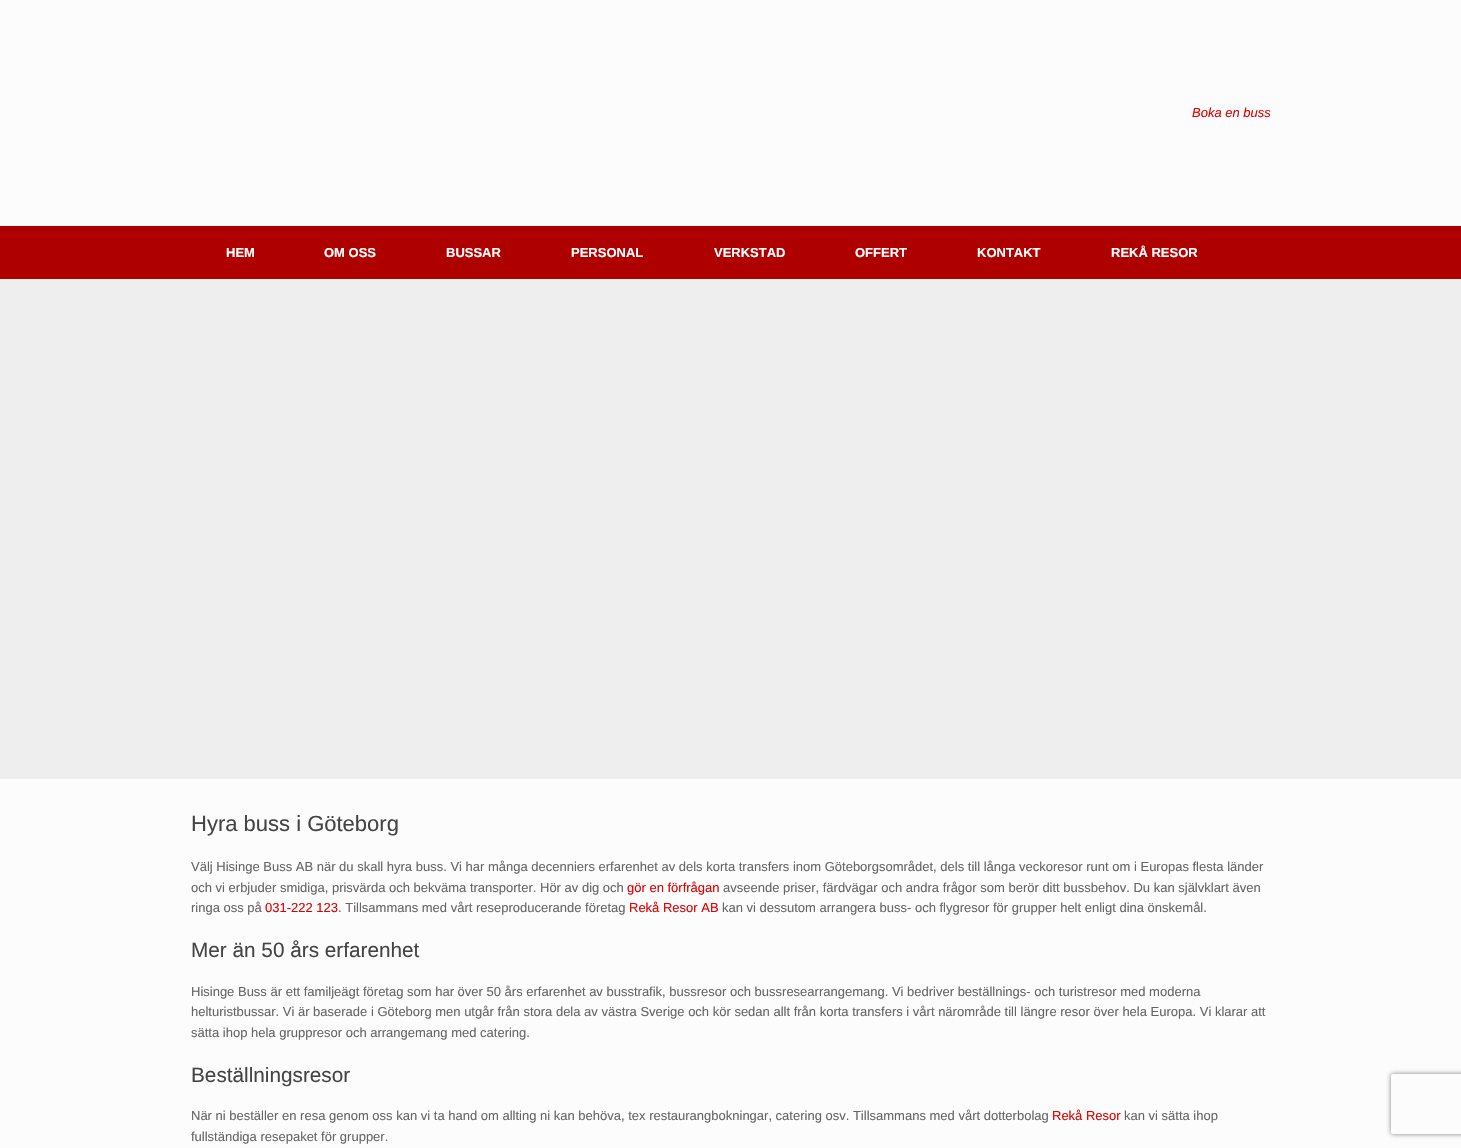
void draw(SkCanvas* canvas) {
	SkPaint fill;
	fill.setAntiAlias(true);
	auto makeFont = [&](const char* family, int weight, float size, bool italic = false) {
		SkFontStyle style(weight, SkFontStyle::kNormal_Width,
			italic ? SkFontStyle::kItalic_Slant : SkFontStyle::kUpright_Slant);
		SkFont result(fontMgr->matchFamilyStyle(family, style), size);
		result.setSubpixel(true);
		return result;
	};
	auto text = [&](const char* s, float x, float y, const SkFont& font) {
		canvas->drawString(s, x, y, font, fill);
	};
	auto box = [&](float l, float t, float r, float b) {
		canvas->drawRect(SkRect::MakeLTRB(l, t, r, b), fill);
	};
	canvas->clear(0xFFFCFCFC);
	fill.setColor(0xFFAF0000);
	box(0, 226, 1461, 279);
	fill.setColor(0xFFEEEEEE);
	box(0, 279, 1461, 779);
	canvas->save();
	canvas->clipPath(SkPathBuilder(SkPathFillType::kEvenOdd).moveTo(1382, 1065).lineTo(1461, 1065).lineTo(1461, 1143).lineTo(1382, 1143).close().moveTo(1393, 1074).lineTo(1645, 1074).cubicTo(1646, 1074, 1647, 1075, 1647, 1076).lineTo(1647, 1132).cubicTo(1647, 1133, 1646, 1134, 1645, 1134).lineTo(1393, 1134).cubicTo(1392, 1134, 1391, 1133, 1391, 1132).lineTo(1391, 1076).cubicTo(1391, 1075, 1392, 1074, 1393, 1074).close().detach(), true);
	fill.setColor(0xFF808080);
	fill.setMaskFilter(SkMaskFilter::MakeBlur(kNormal_SkBlurStyle, 2.5f));
	canvas->drawRoundRect(SkRect::MakeLTRB(1391, 1074, 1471, 1134), 2, 2, fill);
	fill.setMaskFilter(nullptr);
	canvas->restore();
	auto font1 = makeFont("Liberation Sans", 400, 13, true);
	fill.setColor(0xFFE30000);
	text("Boka en buss", 1192, 117, font1);
	auto font2 = makeFont("Liberation Sans", 700, 13);
	fill.setColor(0xFFFFFFFF);
	text("HEM", 226, 257, font2);
	text("OM OSS", 324, 257, font2);
	text("BUSSAR", 446, 257, font2);
	text("PERSONAL", 571, 257, font2);
	text("VERKSTAD", 714, 257, font2);
	text("OFFERT", 855, 257, font2);
	text("KONTAKT", 977, 257, font2);
	text("REKÅ RESOR", 1111, 257, font2);
	auto font3 = makeFont("Liberation Sans", 400, 22);
	fill.setColor(0xFF444444);
	text("Hyra buss i Göteborg", 191, 831, font3);
	auto font4 = makeFont("Liberation Sans", 400, 13);
	fill.setColor(0xFF666666);
	text("Välj Hisinge Buss AB när du skall hyra buss. Vi har många decenniers erfarenhet av dels korta transfers inom Göteborgsområdet, dels till långa veckoresor runt om i Europas flesta länder", 191, 871, font4);
	text("och vi erbjuder smidiga, prisvärda och bekväma transporter. Hör av dig och", 191, 892, font4);
	fill.setColor(0xFFE30000);
	text("gör en förfrågan", 627, 892, font4);
	fill.setColor(0xFF666666);
	text("avseende priser, färdvägar och andra frågor som berör ditt bussbehov. Du kan självklart även", 723, 892, font4);
	text("ringa oss på", 191, 912, font4);
	fill.setColor(0xFFE30000);
	text("031-222 123", 265, 912, font4);
	fill.setColor(0xFF666666);
	text(". Tillsammans med vårt reseproducerande företag", 338, 912, font4);
	fill.setColor(0xFFE30000);
	text("Rekå Resor AB", 629, 912, font4);
	fill.setColor(0xFF666666);
	text("kan vi dessutom arrangera buss- och flygresor för grupper helt enligt dina önskemål.", 722, 912, font4);
	auto font5 = makeFont("Liberation Sans", 400, 20.75f);
	fill.setColor(0xFF444444);
	text("Mer än 50 års erfarenhet", 191, 957, font5);
	fill.setColor(0xFF666666);
	text("Hisinge Buss är ett familjeägt företag som har över 50 års erfarenhet av busstrafik, bussresor och bussresearrangemang. Vi bedriver beställnings- och turistresor med moderna", 191, 996, font4);
	text("helturistbussar. Vi är baserade i Göteborg men utgår från stora dela av västra Sverige och kör sedan allt från korta transfers i vårt närområde till längre resor över hela Europa. Vi klarar att", 191, 1016, font4);
	text("sätta ihop hela gruppresor och arrangemang med catering.", 191, 1037, font4);
	fill.setColor(0xFF444444);
	text("Beställningsresor", 191, 1082, font5);
	fill.setColor(0xFF666666);
	text("När ni beställer en resa genom oss kan vi ta hand om allting ni kan behöva, tex restaurangbokningar, catering osv. Tillsammans med vårt dotterbolag", 191, 1120, font4);
	fill.setColor(0xFFE30000);
	text("Rekå Resor", 1052, 1120, font4);
	fill.setColor(0xFF666666);
	text("kan vi sätta ihop", 1124, 1120, font4);
	text("fullständiga resepaket för grupper.", 191, 1141, font4);
}
